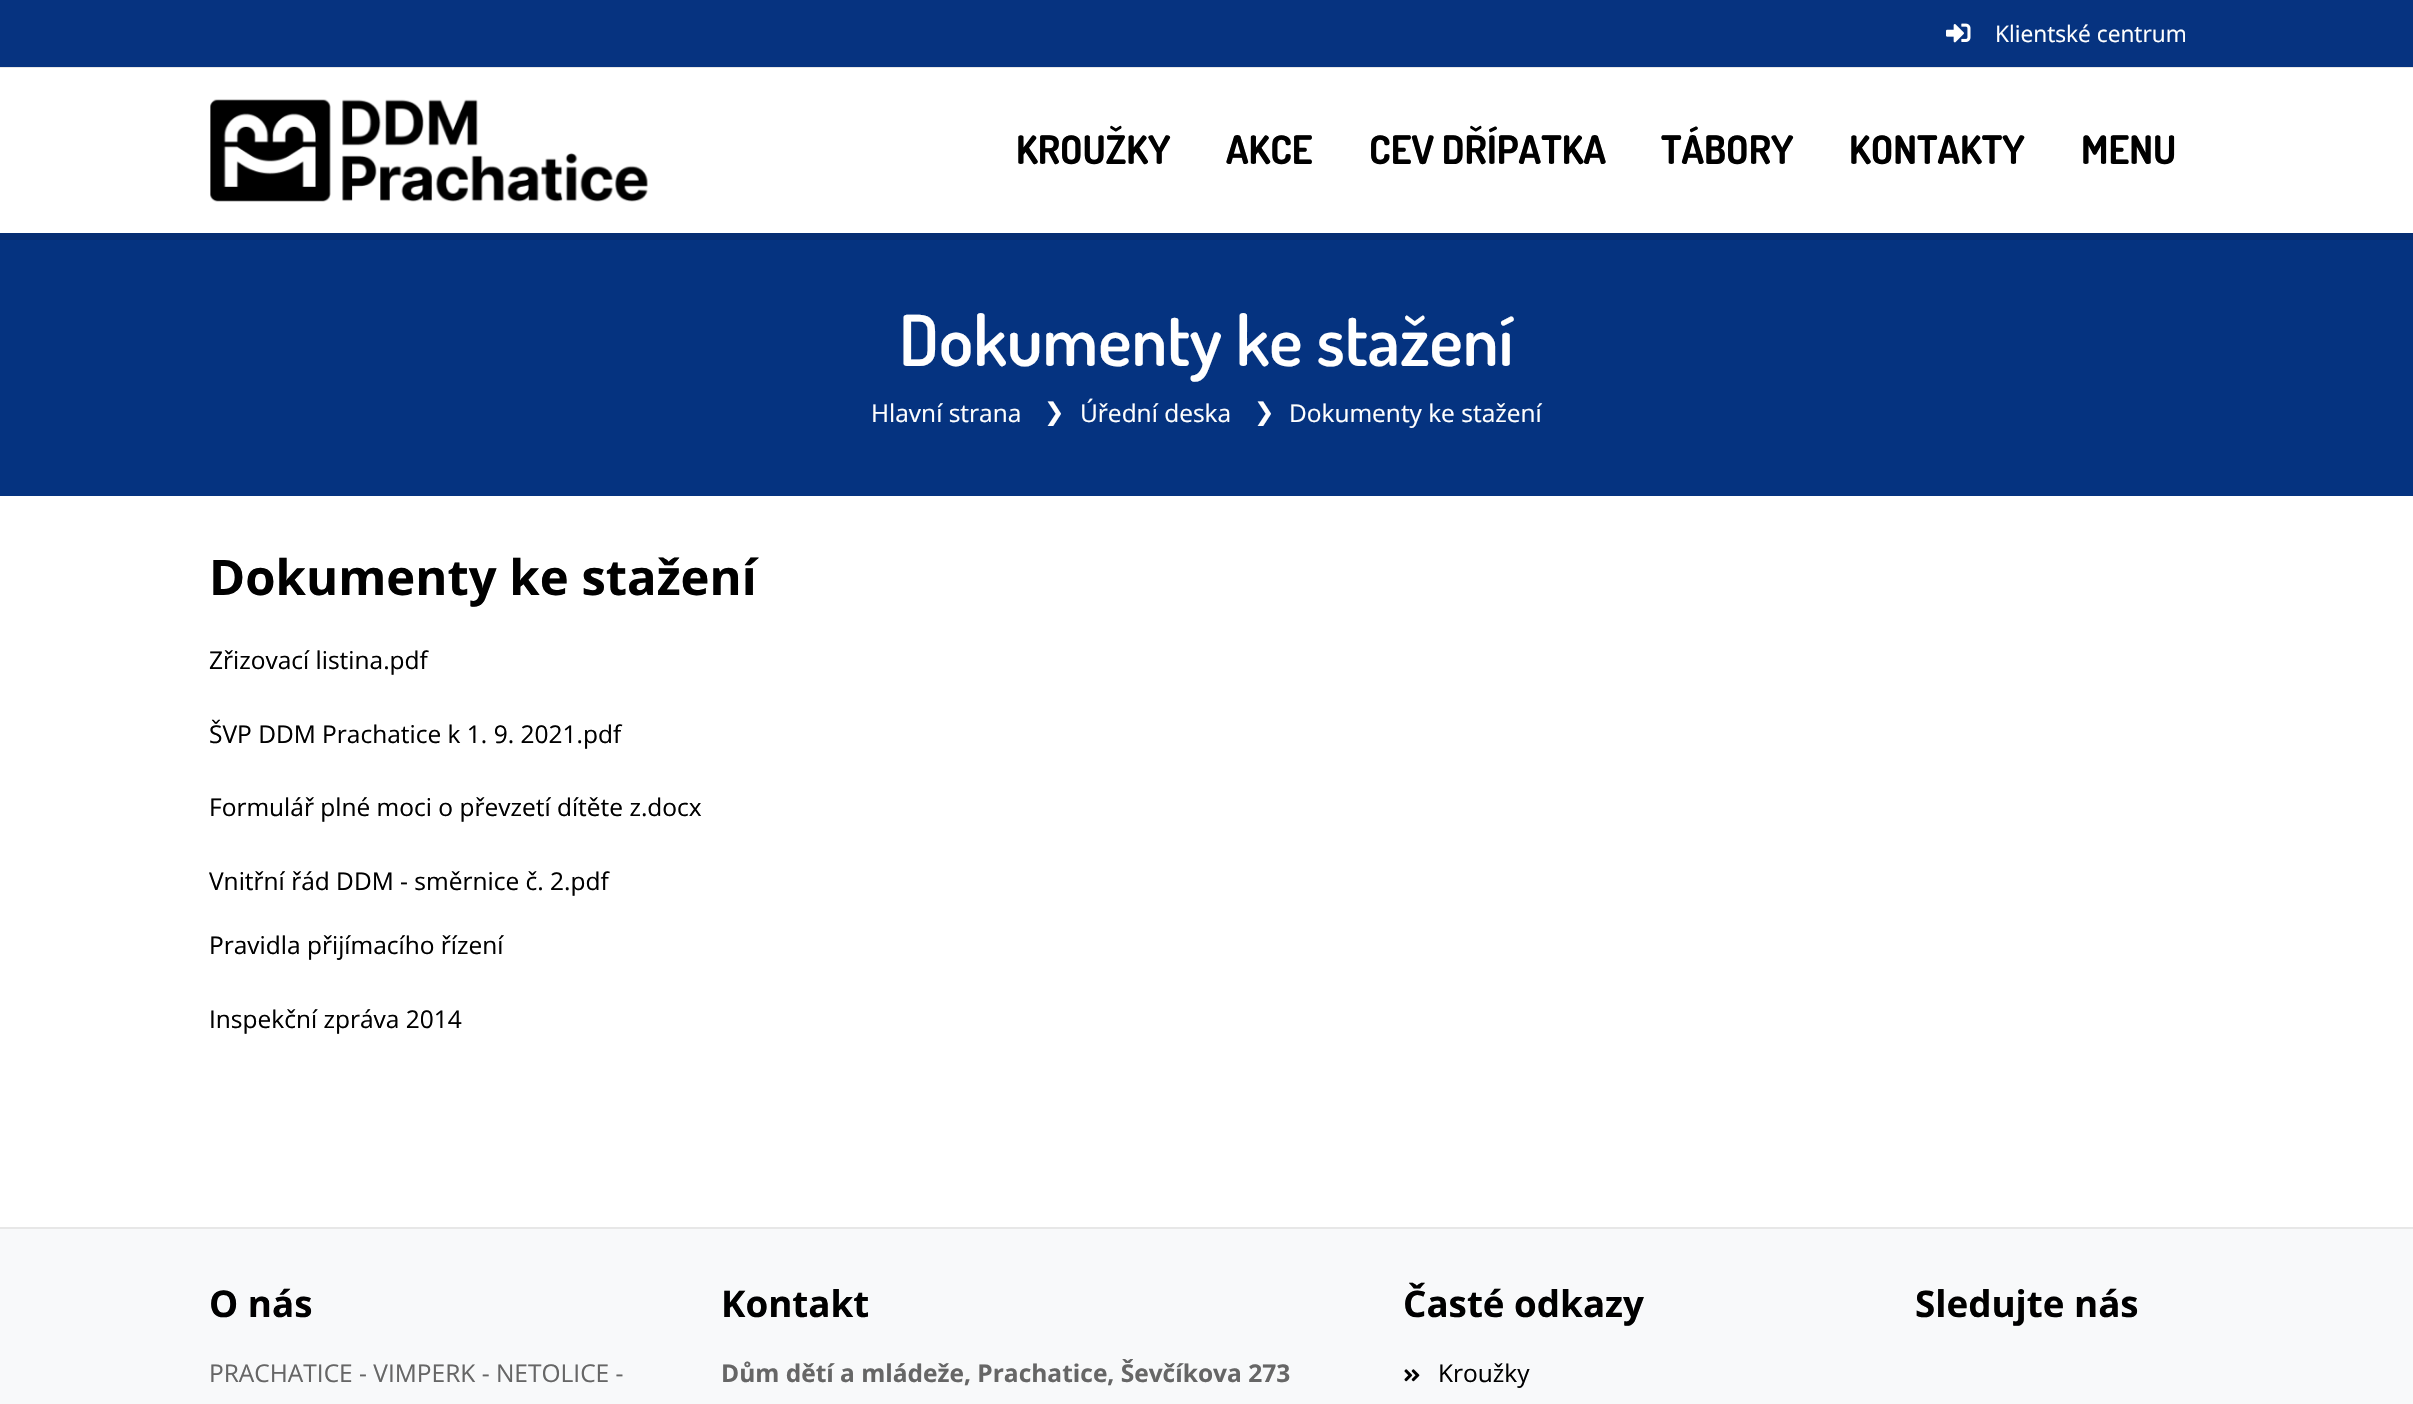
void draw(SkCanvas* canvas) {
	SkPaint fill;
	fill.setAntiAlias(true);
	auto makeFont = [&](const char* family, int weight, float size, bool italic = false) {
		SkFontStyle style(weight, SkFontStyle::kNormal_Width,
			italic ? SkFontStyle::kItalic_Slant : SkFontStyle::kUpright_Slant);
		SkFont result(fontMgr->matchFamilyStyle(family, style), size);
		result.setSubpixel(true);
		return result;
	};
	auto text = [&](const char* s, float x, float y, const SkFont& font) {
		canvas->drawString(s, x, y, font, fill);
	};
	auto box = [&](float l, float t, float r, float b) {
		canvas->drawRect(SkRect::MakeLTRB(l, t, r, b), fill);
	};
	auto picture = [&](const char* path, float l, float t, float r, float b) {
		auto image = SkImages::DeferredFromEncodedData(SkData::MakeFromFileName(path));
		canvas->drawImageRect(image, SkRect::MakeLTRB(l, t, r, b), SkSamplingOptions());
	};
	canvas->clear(0xFFFFFFFF);
	fill.setColor(0xFF063380);
	box(0, 0, 2413, 67);
	fill.setColor(0xFFE7E7E7);
	box(0, 67, 2413, 68);
	picture("image0.png", 1946, 23, 1971, 43);
	fill.setColor(0xFF052E73);
	box(0, 233, 2413, 240);
	picture("image1.png", 210, 99, 648, 202);
	fill.setColor(0xFF053380);
	box(0, 240, 2413, 496);
	fill.setColor(0xFFE7E7E7);
	box(0, 1227, 2413, 1229);
	fill.setColor(0xFFF8F9FA);
	box(0, 1229, 2413, 1404);
	picture("image2.png", 1404, 1369, 1420, 1382);
	auto font1 = makeFont("Open Sans", 400, 22.75f);
	fill.setColor(0xFFFFFFFF);
	text("Klientské centrum", 1995, 42, font1);
	auto font2 = makeFont("Dosis", 700, 39.25f);
	fill.setColor(0xFF000000);
	text("KROUŽKY", 1016, 164, font2);
	text("AKCE", 1226, 164, font2);
	text("CEV DŘÍPATKA", 1369, 164, font2);
	text("TÁBORY", 1661, 164, font2);
	text("KONTAKTY", 1849, 164, font2);
	text("MENU", 2081, 164, font2);
	auto font3 = makeFont("Dosis", 600, 70);
	fill.setColor(0xFFFFFFFF);
	text("Dokumenty ke stažení", 899, 366, font3);
	auto font4 = makeFont("Open Sans", 400, 24.5f);
	text("Hlavní strana", 871, 422, font4);
	auto font5 = makeFont("DejaVu Sans", 400, 24.5f);
	text("❯", 1044, 420, font5);
	text("Úřední deska", 1080, 422, font4);
	text("❯", 1254, 420, font5);
	text("Dokumenty ke stažení", 1289, 422, font4);
	auto font6 = makeFont("Open Sans", 700, 49);
	fill.setColor(0xFF000000);
	text("Dokumenty ke stažení", 209, 595, font6);
	text("Zřizovací listina.pdf", 209, 669, font4);
	text("ŠVP DDM Prachatice k 1. 9. 2021.pdf", 209, 743, font4);
	text("Formulář plné moci o převzetí dítěte z.docx", 209, 816, font4);
	text("Vnitřní řád DDM - směrnice č. 2.pdf", 209, 890, font4);
	text("Pravidla přijímacího řízení", 209, 954, font4);
	text("Inspekční zpráva 2014", 209, 1028, font4);
	auto font7 = makeFont("Open Sans", 700, 36.75f);
	text("O nás", 209, 1317, font7);
	fill.setColor(0xFF666666);
	text("PRACHATICE - VIMPERK - NETOLICE -", 209, 1382, font4);
	fill.setColor(0xFF000000);
	text("Kontakt", 721, 1317, font7);
	auto font8 = makeFont("Open Sans", 700, 24.5f);
	fill.setColor(0xFF666666);
	text("Dům dětí a mládeže, Prachatice, Ševčíkova 273", 721, 1382, font8);
	fill.setColor(0xFF000000);
	text("Časté odkazy", 1403, 1317, font7);
	text("Kroužky", 1438, 1382, font4);
	text("Sledujte nás", 1915, 1317, font7);
}
